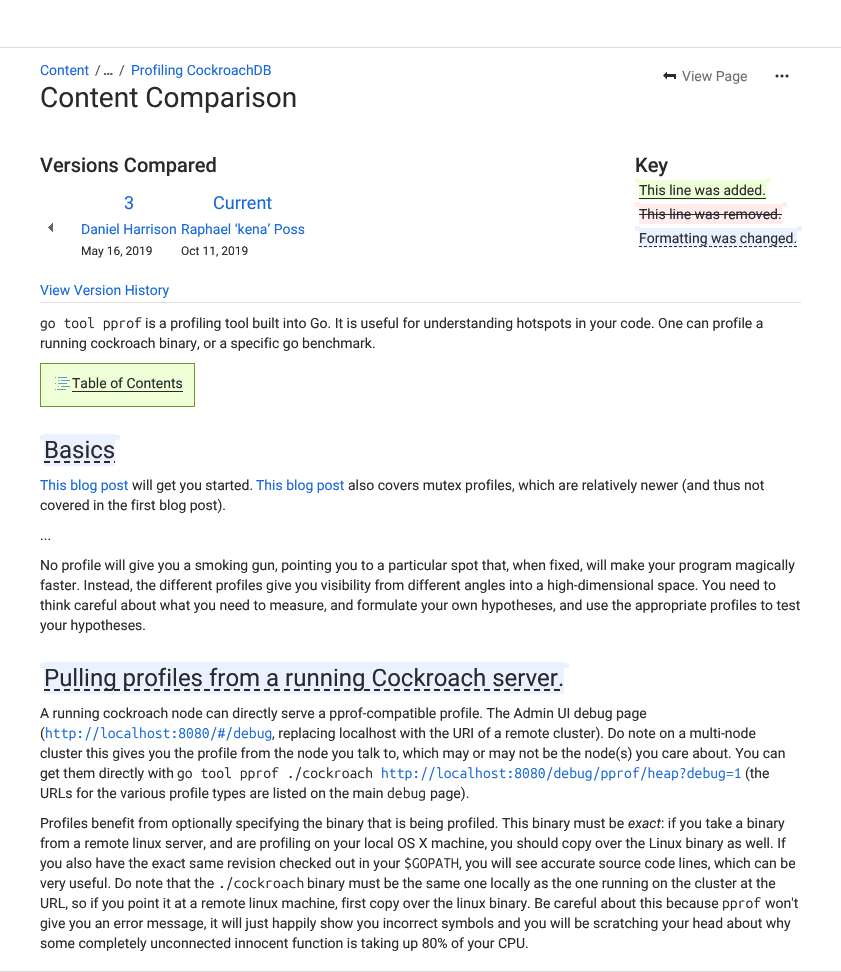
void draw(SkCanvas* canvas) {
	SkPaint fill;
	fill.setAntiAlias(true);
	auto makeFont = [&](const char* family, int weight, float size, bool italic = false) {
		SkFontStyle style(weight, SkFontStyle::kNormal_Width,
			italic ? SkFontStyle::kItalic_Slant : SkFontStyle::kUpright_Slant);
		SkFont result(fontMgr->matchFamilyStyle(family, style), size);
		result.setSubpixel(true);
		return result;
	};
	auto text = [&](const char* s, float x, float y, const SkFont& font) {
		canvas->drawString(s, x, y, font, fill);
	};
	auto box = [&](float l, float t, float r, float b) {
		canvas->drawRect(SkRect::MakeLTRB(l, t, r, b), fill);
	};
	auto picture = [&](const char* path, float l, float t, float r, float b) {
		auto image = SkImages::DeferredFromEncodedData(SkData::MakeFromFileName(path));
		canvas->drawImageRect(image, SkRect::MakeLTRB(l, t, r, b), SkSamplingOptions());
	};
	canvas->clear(0xFFFFFFFF);
	fill.setColor(0xFFDDDEDD);
	box(0, 47, 841, 48);
	box(0, 971, 841, 972);
	picture("image0.png", 663, 71, 676, 80);
	picture("image1.png", 775, 74, 789, 78);
	box(40, 302, 801, 303);
	fill.setColor(0xFFEFFFD6);
	box(635, 178, 640, 183);
	box(639, 180, 766, 200);
	box(766, 178, 771, 183);
	fill.setColor(0xFF292A2E);
	box(639, 198, 766, 199);
	fill.setColor(0xFFFFECEB);
	box(635, 202, 640, 207);
	box(639, 204, 782, 224);
	box(782, 202, 787, 207);
	fill.setColor(0xFF292A2E);
	box(639, 214, 782, 215);
	fill.setColor(0xFFE9F2FE);
	box(635, 226, 640, 231);
	box(639, 228, 797, 248);
	box(797, 226, 802, 231);
	fill.setStyle(SkPaint::kStroke_Style);
	fill.setStrokeWidth(1);
	fill.setColor(0xFF292A2E);
	fill.setPathEffect(SkDashPathEffect::Make({{3, 2}}, 0));
	canvas->drawPath(SkPathBuilder().moveTo(639, 246.5f).lineTo(797, 246.5f).detach(), fill);
	fill.setPathEffect(nullptr);
	picture("image2.png", 48, 223, 53, 232);
	fill.setStyle(SkPaint::kFill_Style);
	fill.setColor(0xFFEFFFD6);
	canvas->drawRect(SkRect::MakeLTRB(40.5f, 363.5f, 194.5f, 406.5f), fill);
	fill.setStyle(SkPaint::kStroke_Style);
	fill.setColor(0xFF6A9A23);
	canvas->drawRect(SkRect::MakeLTRB(40.5f, 363.5f, 194.5f, 406.5f), fill);
	picture("image3.png", 55, 377, 70, 390);
	fill.setStyle(SkPaint::kFill_Style);
	fill.setColor(0xFF292A2E);
	box(72, 391, 183, 392);
	fill.setColor(0xFFE9F2FE);
	box(40, 435, 45, 440);
	box(44, 434, 115, 466);
	box(115, 435, 120, 440);
	fill.setStyle(SkPaint::kStroke_Style);
	fill.setStrokeWidth(2);
	fill.setColor(0xFF292A2E);
	fill.setPathEffect(SkDashPathEffect::Make({{6, 4}}, 0));
	canvas->drawPath(SkPathBuilder().moveTo(44, 462).lineTo(115, 462).detach(), fill);
	fill.setPathEffect(nullptr);
	fill.setStyle(SkPaint::kFill_Style);
	fill.setColor(0xFFE9F2FE);
	box(40, 663, 45, 668);
	box(44, 662, 564, 694);
	box(564, 663, 569, 668);
	fill.setStyle(SkPaint::kStroke_Style);
	fill.setColor(0xFF292A2E);
	fill.setPathEffect(SkDashPathEffect::Make({{6, 4}}, 0));
	canvas->drawPath(SkPathBuilder().moveTo(44, 690).lineTo(564, 690).detach(), fill);
	fill.setPathEffect(nullptr);
	auto font1 = makeFont("Roboto", 400, 14);
	fill.setStyle(SkPaint::kFill_Style);
	fill.setColor(0xFF1868DB);
	text("Content", 40, 75, font1);
	fill.setColor(0xFF505258);
	text("/", 95, 75, font1);
	auto font2 = makeFont("Roboto", 700, 14);
	text("…", 103, 75, font2);
	text("/", 119, 75, font1);
	fill.setColor(0xFF1868DB);
	text("Profiling CockroachDB", 131, 75, font1);
	auto font3 = makeFont("Roboto", 400, 28);
	fill.setColor(0xFF292A2E);
	text("Content Comparison", 40, 107, font3);
	fill.setColor(0xFF6B6E76);
	text("View Page", 682, 81, font1);
	auto font4 = makeFont("Roboto", 500, 20);
	fill.setColor(0xFF292A2E);
	text("Versions Compared", 40, 172, font4);
	text("Key", 635, 172, font4);
	text("This line was added.", 639, 195, font1);
	text("This line was removed.", 639, 219, font1);
	text("Formatting was changed.", 639, 243, font1);
	auto font5 = makeFont("Roboto", 400, 18);
	fill.setColor(0xFF1868DB);
	text("3", 124, 209, font5);
	text("Current", 213, 209, font5);
	text("Daniel Harrison", 81, 234, font1);
	text("Raphael ‘kena’ Poss", 181, 234, font1);
	auto font6 = makeFont("Roboto", 400, 12);
	fill.setColor(0xFF292A2E);
	text("May 16, 2019", 81, 255, font6);
	text("Oct 11, 2019", 181, 255, font6);
	fill.setColor(0xFF1868DB);
	text("View Version History", 40, 295, font1);
	auto font7 = makeFont("Ubuntu Mono", 400, 14);
	fill.setColor(0xFF292A2E);
	text("go tool pprof", 40, 328, font7);
	text("is a profiling tool built into Go. It is useful for understanding hotspots in your code. One can profile a", 145, 328, font1);
	text("running cockroach binary, or a specific go benchmark.", 40, 348, font1);
	text("Table of Contents", 72, 388, font1);
	auto font8 = makeFont("Roboto", 400, 24);
	text("Basics", 44, 458, font8);
	fill.setColor(0xFF1868DB);
	text("This blog post", 40, 490, font1);
	fill.setColor(0xFF292A2E);
	text("will get you started.", 132, 490, font1);
	fill.setColor(0xFF1868DB);
	text("This blog post", 256, 490, font1);
	fill.setColor(0xFF292A2E);
	text("also covers mutex profiles, which are relatively newer (and thus not", 348, 490, font1);
	text("covered in the first blog post).", 40, 510, font1);
	text("...", 40, 540, font1);
	text("No profile will give you a smoking gun, pointing you to a particular spot that, when fixed, will make your program magically", 40, 570, font1);
	text("faster. Instead, the different profiles give you visibility from different angles into a high-dimensional space. You need to", 40, 590, font1);
	text("think careful about what you need to measure, and formulate your own hypotheses, and use the appropriate profiles to test", 40, 610, font1);
	text("your hypotheses.", 40, 630, font1);
	text("Pulling profiles from a running Cockroach server.", 44, 686, font8);
	text("A running cockroach node can directly serve a pprof-compatible profile. The Admin UI debug page", 40, 718, font1);
	text("(", 40, 738, font1);
	fill.setColor(0xFF1868DB);
	text("http://localhost:8080/#/debug", 45, 738, font7);
	fill.setColor(0xFF292A2E);
	text(", replacing localhost with the URI of a remote cluster). Do note on a multi-node", 272, 738, font1);
	text("cluster this gives you the profile from the node you talk to, which may or may not be the node(s) you care about. You can", 40, 758, font1);
	text("get them directly with", 40, 778, font1);
	text("go tool pprof ./cockroach", 177, 778, font7);
	fill.setColor(0xFF1868DB);
	text("http://localhost:8080/debug/pprof/heap?debug=1", 381, 778, font7);
	fill.setColor(0xFF292A2E);
	text("(the", 745, 778, font1);
	text("URLs for the various profile types are listed on the main", 40, 798, font1);
	text("debug", 387, 798, font7);
	text("page).", 430, 798, font1);
	text("Profiles benefit from optionally specifying the binary that is being profiled. This binary must be", 40, 828, font1);
	auto font9 = makeFont("Roboto", 400, 14, true);
	text("exact", 628, 828, font9);
	text(": if you take a binary", 661, 828, font1);
	text("from a remote linux server, and are profiling on your local OS X machine, you should copy over the Linux binary as well. If", 40, 848, font1);
	text("you also have the exact same revision checked out in your", 40, 868, font1);
	text("$GOPATH", 404, 868, font7);
	text(", you will see accurate source code lines, which can be", 459, 868, font1);
	text("very useful. Do note that the", 40, 888, font1);
	text("./cockroach", 218, 888, font7);
	text("binary must be the same one locally as the one running on the cluster at the", 307, 888, font1);
	text("URL, so if you point it at a remote linux machine, first copy over the linux binary. Be careful about this because", 40, 908, font1);
	text("pprof", 722, 908, font7);
	text("won't", 765, 908, font1);
	text("give you an error message, it will just happily show you incorrect symbols and you will be scratching your head about why", 40, 928, font1);
	text("some completely unconnected innocent function is taking up 80% of your CPU.", 40, 948, font1);
}
